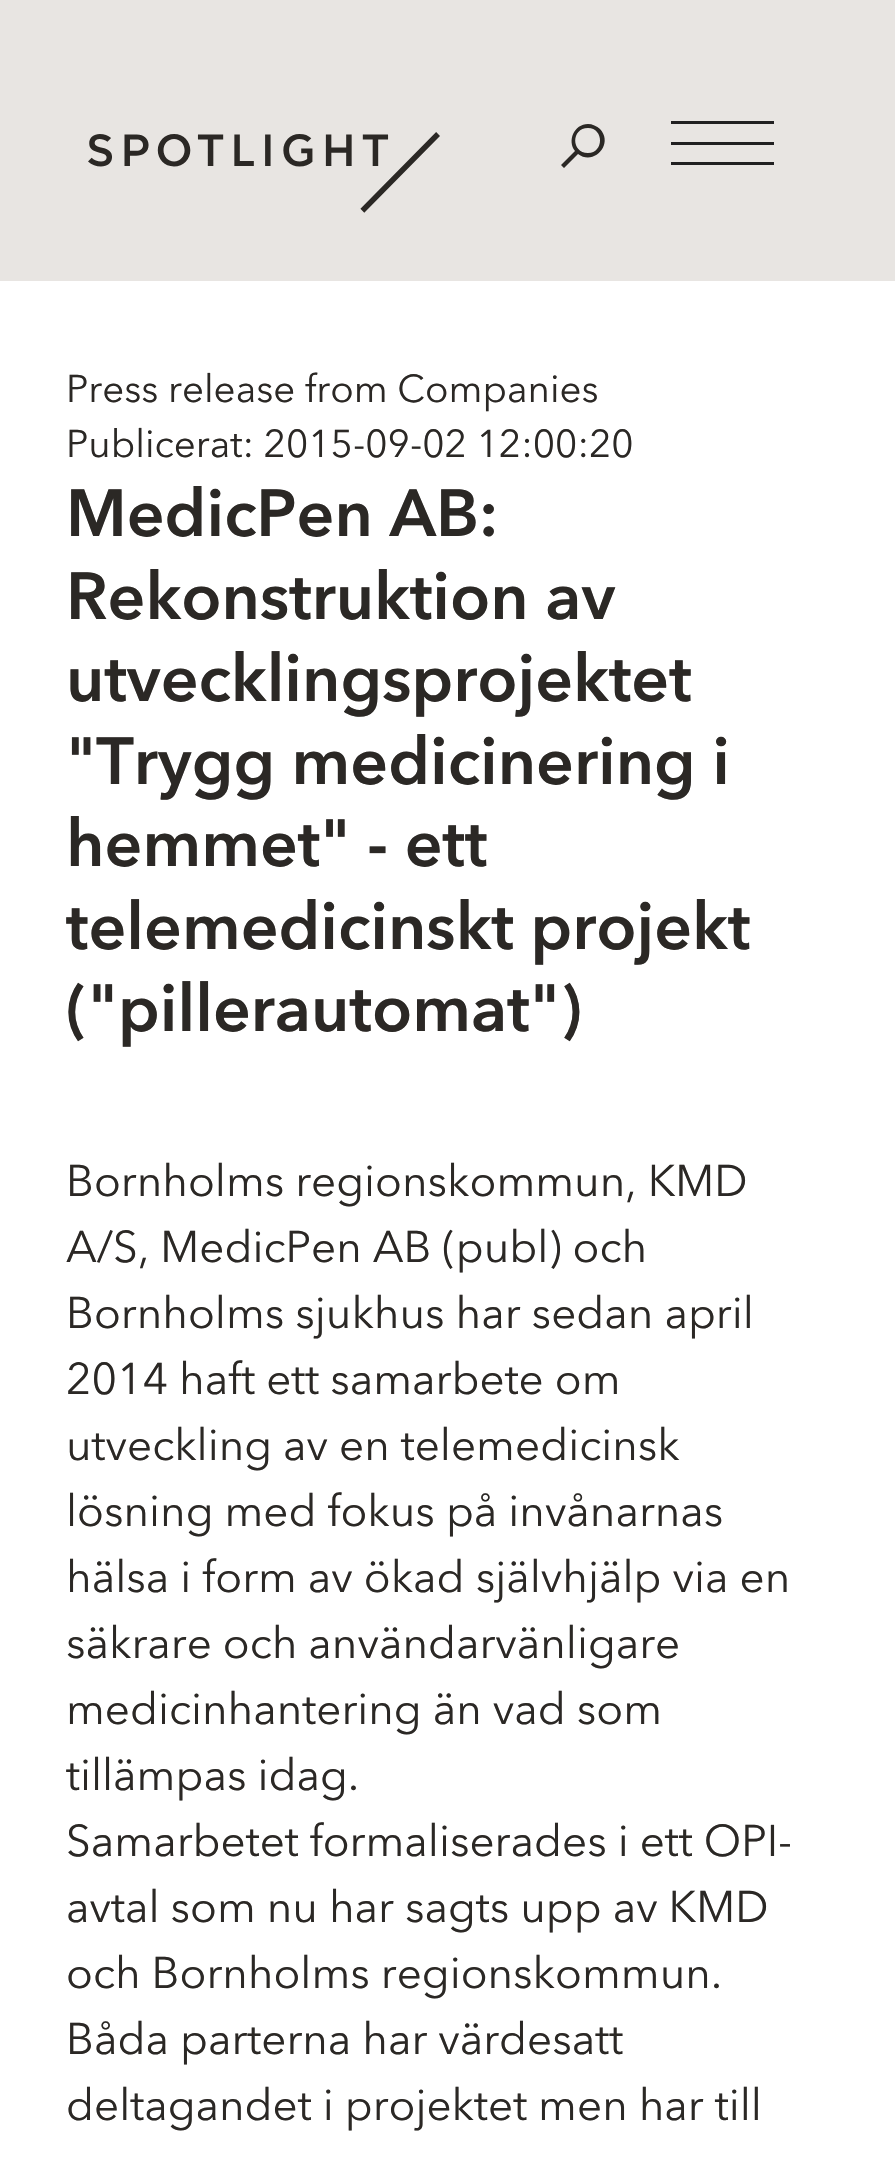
void draw(SkCanvas* canvas) {
	SkPaint fill;
	fill.setAntiAlias(true);
	auto makeFont = [&](const char* family, int weight, float size, bool italic = false) {
		SkFontStyle style(weight, SkFontStyle::kNormal_Width,
			italic ? SkFontStyle::kItalic_Slant : SkFontStyle::kUpright_Slant);
		SkFont result(fontMgr->matchFamilyStyle(family, style), size);
		result.setSubpixel(true);
		return result;
	};
	auto text = [&](const char* s, float x, float y, const SkFont& font) {
		canvas->drawString(s, x, y, font, fill);
	};
	auto box = [&](float l, float t, float r, float b) {
		canvas->drawRect(SkRect::MakeLTRB(l, t, r, b), fill);
	};
	auto picture = [&](const char* path, float l, float t, float r, float b) {
		auto image = SkImages::DeferredFromEncodedData(SkData::MakeFromFileName(path));
		canvas->drawImageRect(image, SkRect::MakeLTRB(l, t, r, b), SkSamplingOptions());
	};
	canvas->clear(0xFFFFFFFF);
	fill.setColor(0xFFE8E5E2);
	box(0, 0, 895, 281);
	picture("image0.png", 88, 132, 440, 213);
	fill.setColor(0xFF2B2825);
	canvas->drawPath(SkPathBuilder().moveTo(588, 124).cubicTo(574, 124, 567, 141, 575, 151).lineTo(561, 165).lineTo(564, 168).lineTo(578, 154).cubicTo(594, 166, 614, 144, 600, 129).cubicTo(597, 126, 592, 124, 588, 124).close().moveTo(588, 153).cubicTo(571, 153, 571, 128, 588, 128).cubicTo(604, 128, 604, 153, 588, 153).close().detach(), fill);
	fill.setColor(0xFF212021);
	box(671, 121, 774, 124);
	box(671, 162, 774, 165);
	box(671, 142, 774, 145);
	auto font1 = makeFont("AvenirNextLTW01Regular", 400, 38.5f);
	fill.setColor(0xFF2B2825);
	text("Press release from Companies", 66, 402, font1);
	text("Publicerat: 2015-09-02 12:00:20", 66, 457, font1);
	auto font2 = makeFont("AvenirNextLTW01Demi", 700, 66);
	text("MedicPen AB:", 66, 536, font2);
	text("Rekonstruktion av", 66, 619, font2);
	text("utvecklingsprojektet", 66, 701, font2);
	text("\"Trygg medicinering i", 66, 784, font2);
	text("hemmet\" - ett", 66, 866, font2);
	text("telemedicinskt projekt", 66, 949, font2);
	text("(\"pillerautomat\")", 66, 1031, font2);
	auto font3 = makeFont("AvenirNextLTW01Regular", 400, 44);
	text("Bornholms regionskommun, KMD", 66, 1196, font3);
	text("A/S, MedicPen AB (publ) och", 66, 1262, font3);
	text("Bornholms sjukhus har sedan april", 66, 1328, font3);
	text("2014 haft ett samarbete om", 66, 1394, font3);
	text("utveckling av en telemedicinsk", 66, 1460, font3);
	text("lösning med fokus på invånarnas", 66, 1526, font3);
	text("hälsa i form av ökad självhjälp via en", 66, 1592, font3);
	text("säkrare och användarvänligare", 66, 1658, font3);
	text("medicinhantering än vad som", 66, 1724, font3);
	text("tillämpas idag.", 66, 1790, font3);
	text("Samarbetet formaliserades i ett OPI-", 66, 1856, font3);
	text("avtal som nu har sagts upp av KMD", 66, 1922, font3);
	text("och Bornholms regionskommun.", 66, 1988, font3);
	text("Båda parterna har värdesatt", 66, 2054, font3);
	text("deltagandet i projektet men har till", 66, 2120, font3);
}
